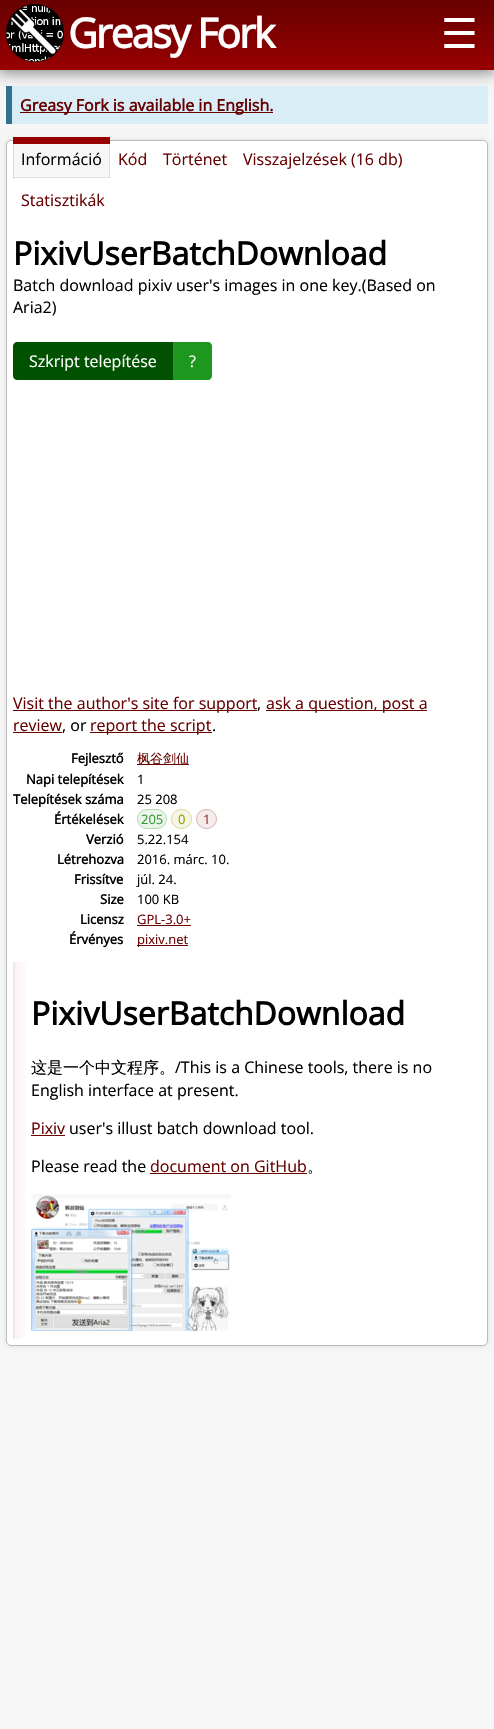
void draw(SkCanvas* canvas) {
	SkPaint fill;
	fill.setAntiAlias(true);
	auto makeFont = [&](const char* family, int weight, float size, bool italic = false) {
		SkFontStyle style(weight, SkFontStyle::kNormal_Width,
			italic ? SkFontStyle::kItalic_Slant : SkFontStyle::kUpright_Slant);
		SkFont result(fontMgr->matchFamilyStyle(family, style), size);
		result.setSubpixel(true);
		return result;
	};
	auto text = [&](const char* s, float x, float y, const SkFont& font) {
		canvas->drawString(s, x, y, font, fill);
	};
	auto spacedText = [&](const char* s, float x, float y, const SkFont& font, const SkPaint& ink, float letter, float word) {
		std::vector<SkGlyphID> glyphs(font.countText(s, strlen(s), SkTextEncoding::kUTF8));
		std::vector<float> xs(glyphs.size());
		font.textToGlyphs(s, strlen(s), SkTextEncoding::kUTF8, glyphs);
		font.getXPos(glyphs, xs, x);
		float extra = 0;
		for (size_t i = 0; i < glyphs.size(); i++) {
			xs[i] += extra;
			extra += letter + word * (glyphs[i] == font.unicharToGlyph(' '));
		}
		canvas->drawTextBlob(SkTextBlob::MakeFromPosHGlyphs(glyphs, xs, y, font), 0, 0, ink);
	};
	auto box = [&](float l, float t, float r, float b) {
		canvas->drawRect(SkRect::MakeLTRB(l, t, r, b), fill);
	};
	auto roundBox = [&](float l, float t, float r, float b, float radius) {
		canvas->drawRoundRect(SkRect::MakeLTRB(l, t, r, b), radius, radius, fill);
	};
	auto picture = [&](const char* path, float l, float t, float r, float b) {
		auto image = SkImages::DeferredFromEncodedData(SkData::MakeFromFileName(path));
		canvas->drawImageRect(image, SkRect::MakeLTRB(l, t, r, b), SkSamplingOptions());
	};
	canvas->clear(0xFFF6F6F6);
	fill.setColor(0x80000000);
	fill.setMaskFilter(SkMaskFilter::MakeBlur(kNormal_SkBlurStyle, 7.5f));
	canvas->drawRect(SkRect::MakeLTRB(-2, -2, 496, 72), fill);
	fill.setMaskFilter(nullptr);
	{
		const SkColor colors[] = {0xFF670000, 0xFF990000};
		const float stops[] = {0, 1};
		const SkPoint ends[] = {{247, 0}, {247, 70}};
		fill.setShader(SkGradientShader::MakeLinear(ends, colors, stops, 2, SkTileMode::kClamp));
		fill.setAlpha(255);
	}
	box(0, 0, 494, 70);
	picture("image0.png", 6, 4, 64, 62);
	fill.setShader(nullptr);
	fill.setColor(0xFFD9EDF7);
	box(12, 86, 488, 124);
	fill.setColor(0xFF31708F);
	box(6, 86, 12, 124);
	fill.setColor(0xFF670000);
	box(20, 112, 273, 113);
	fill.setColor(0xFFDDDDDD);
	fill.setMaskFilter(SkMaskFilter::MakeBlur(kNormal_SkBlurStyle, 2.5f));
	canvas->drawRoundRect(SkRect::MakeLTRB(6, 140, 488, 1346), 5, 5, fill);
	fill.setMaskFilter(nullptr);
	fill.setColor(0xFFFFFFFF);
	canvas->drawRoundRect(SkRect::MakeLTRB(6.5f, 140.5f, 487.5f, 1345.5f), 4.5f, 4.5f, fill);
	fill.setStyle(SkPaint::kStroke_Style);
	fill.setStrokeWidth(1);
	fill.setColor(0xFFBBBBBB);
	canvas->drawRoundRect(SkRect::MakeLTRB(6.5f, 140.5f, 487.5f, 1345.5f), 4.5f, 4.5f, fill);
	fill.setStyle(SkPaint::kFill_Style);
	fill.setColor(0x08000000);
	box(13, 144, 110, 177);
	fill.setColor(0xFFDFDFDF);
	box(13, 177, 110, 178);
	fill.setColor(0x1A000000);
	box(109, 144, 110, 178);
	box(13, 144, 14, 178);
	fill.setColor(0xFF990000);
	box(13, 137, 110, 144);
	fill.setColor(0xFF005200);
	canvas->drawPath(SkPathBuilder().moveTo(17, 342).lineTo(173, 342).lineTo(173, 380).lineTo(17, 380).cubicTo(15, 380, 13, 378, 13, 376).lineTo(13, 346).cubicTo(13, 344, 15, 342, 17, 342).close().detach(), fill);
	fill.setColor(0xFF1E971E);
	canvas->drawPath(SkPathBuilder().moveTo(173, 342).lineTo(208, 342).cubicTo(210, 342, 212, 344, 212, 346).lineTo(212, 376).cubicTo(212, 378, 210, 380, 208, 380).lineTo(173, 380).close().detach(), fill);
	fill.setColor(0xFF670000);
	box(13, 710, 257, 711);
	box(266, 710, 427, 711);
	box(13, 732, 62, 733);
	box(90, 732, 212, 733);
	box(137, 764, 189, 765);
	fill.setColor(0xFFEBF5EB);
	roundBox(137, 809, 167, 829, 10);
	fill.setStyle(SkPaint::kStroke_Style);
	fill.setColor(0x4D339B33);
	canvas->drawRoundRect(SkRect::MakeLTRB(137.5f, 809.5f, 166.5f, 828.5f), 9.5f, 9.5f, fill);
	fill.setStyle(SkPaint::kFill_Style);
	fill.setColor(0xFFF5F5E6);
	roundBox(171, 809, 192, 829, 10);
	fill.setStyle(SkPaint::kStroke_Style);
	fill.setColor(0x4D9B9B00);
	canvas->drawRoundRect(SkRect::MakeLTRB(171.5f, 809.5f, 191.5f, 828.5f), 9.5f, 9.5f, fill);
	fill.setStyle(SkPaint::kFill_Style);
	fill.setColor(0xFFF5EBEB);
	roundBox(196, 809, 217, 829, 10);
	fill.setStyle(SkPaint::kStroke_Style);
	fill.setColor(0x4D9B3333);
	canvas->drawRoundRect(SkRect::MakeLTRB(196.5f, 809.5f, 216.5f, 828.5f), 9.5f, 9.5f, fill);
	fill.setStyle(SkPaint::kFill_Style);
	fill.setColor(0xFF670000);
	box(137, 925, 191, 926);
	box(137, 945, 188, 946);
	{
		const SkColor colors[] = {0xFFFCF1F1, 0xFFFFFFFF};
		const float stops[] = {0, 0.03f};
		const SkPoint ends[] = {{15, 1151}, {481, 1151}};
		fill.setShader(SkGradientShader::MakeLinear(ends, colors, stops, 2, SkTileMode::kClamp));
		fill.setAlpha(255);
	}
	box(15, 962, 26, 1339);
	fill.setShader(nullptr);
	fill.setColor(0xFFF2E5E5);
	box(13, 962, 15, 1339);
	fill.setColor(0xFF670000);
	box(31, 1135, 65, 1136);
	box(150, 1173, 307, 1174);
	picture("image1.png", 31, 1194, 231, 1331);
	auto font1 = makeFont("Open Sans", 700, 41);
	fill.setColor(0xFFFFFFFF);
	spacedText("Greasy Fork", 68, 48, font1, fill, -2, 0);
	auto font2 = makeFont("DejaVu Sans", 400, 41);
	text("☰", 441, 48, font2);
	auto font3 = makeFont("Open Sans", 700, 16);
	fill.setColor(0xFF670000);
	text("Greasy Fork is available in English.", 20, 111, font3);
	auto font4 = makeFont("Open Sans", 400, 16);
	fill.setColor(0xFF000000);
	text("Információ", 21, 165, font4);
	fill.setColor(0xFF670000);
	text("Kód", 118, 165, font4);
	text("Történet", 163, 165, font4);
	text("Visszajelzések (16 db)", 243, 165, font4);
	text("Statisztikák", 21, 206, font4);
	auto font5 = makeFont("Open Sans", 700, 32);
	fill.setColor(0xFF000000);
	text("PixivUserBatchDownload", 13, 265, font5);
	text("Batch download pixiv user's images in one key.(Based on", 13, 291, font4);
	text("Aria2)", 13, 313, font4);
	fill.setColor(0xFFFFFFFF);
	text("Szkript telepítése", 29, 367, font4);
	text("?", 189, 367, font4);
	fill.setColor(0xFF670000);
	text("Visit the author's site for support", 13, 709, font4);
	fill.setColor(0xFF000000);
	text(",", 257, 709, font4);
	fill.setColor(0xFF670000);
	text("ask a question, post a", 266, 709, font4);
	text("review", 13, 731, font4);
	fill.setColor(0xFF000000);
	text(", or", 62, 731, font4);
	fill.setColor(0xFF670000);
	text("report the script", 90, 731, font4);
	fill.setColor(0xFF000000);
	text(".", 212, 731, font4);
	auto font6 = makeFont("Open Sans", 700, 13);
	text("Fejlesztő", 71, 763, font6);
	auto font7 = makeFont("WenQuanYi Zen Hei", 500, 13);
	fill.setColor(0xFF670000);
	text("枫谷剑仙", 137, 763, font7);
	fill.setColor(0xFF000000);
	text("Napi telepítések", 26, 784, font6);
	auto font8 = makeFont("Open Sans", 400, 13);
	text("1", 137, 784, font8);
	text("Telepítések száma", 13, 804, font6);
	text("25 208", 137, 804, font8);
	text("Értékelések", 54, 824, font6);
	fill.setColor(0xFF339B33);
	text("205", 141, 824, font8);
	fill.setColor(0xFF9B9B00);
	text("0", 178, 824, font8);
	fill.setColor(0xFF9B3333);
	text("1", 203, 824, font8);
	fill.setColor(0xFF000000);
	text("Verzió", 86, 844, font6);
	text("5.22.154", 137, 844, font8);
	text("Létrehozva", 57, 864, font6);
	text("2016. márc. 10.", 137, 864, font8);
	text("Frissítve", 74, 884, font6);
	text("júl. 24.", 137, 884, font8);
	text("Size", 100, 904, font6);
	text("100 KB", 137, 904, font8);
	text("Licensz", 80, 924, font6);
	fill.setColor(0xFF670000);
	text("GPL-3.0+", 137, 924, font8);
	fill.setColor(0xFF000000);
	text("Érvényes", 69, 944, font6);
	fill.setColor(0xFF670000);
	text("pixiv.net", 137, 944, font8);
	fill.setColor(0xFF000000);
	text("PixivUserBatchDownload", 31, 1025, font5);
	auto font9 = makeFont("WenQuanYi Zen Hei", 500, 16);
	text("这是一个中文程序。", 31, 1073, font9);
	text("/This is a Chinese tools, there is no", 175, 1073, font4);
	text("English interface at present.", 31, 1096, font4);
	fill.setColor(0xFF670000);
	text("Pixiv", 31, 1134, font4);
	fill.setColor(0xFF000000);
	text("user's illust batch download tool.", 69, 1134, font4);
	text("Please read the", 31, 1172, font4);
	fill.setColor(0xFF670000);
	text("document on GitHub", 150, 1172, font4);
	fill.setColor(0xFF000000);
	text("。", 307, 1172, font9);
}
